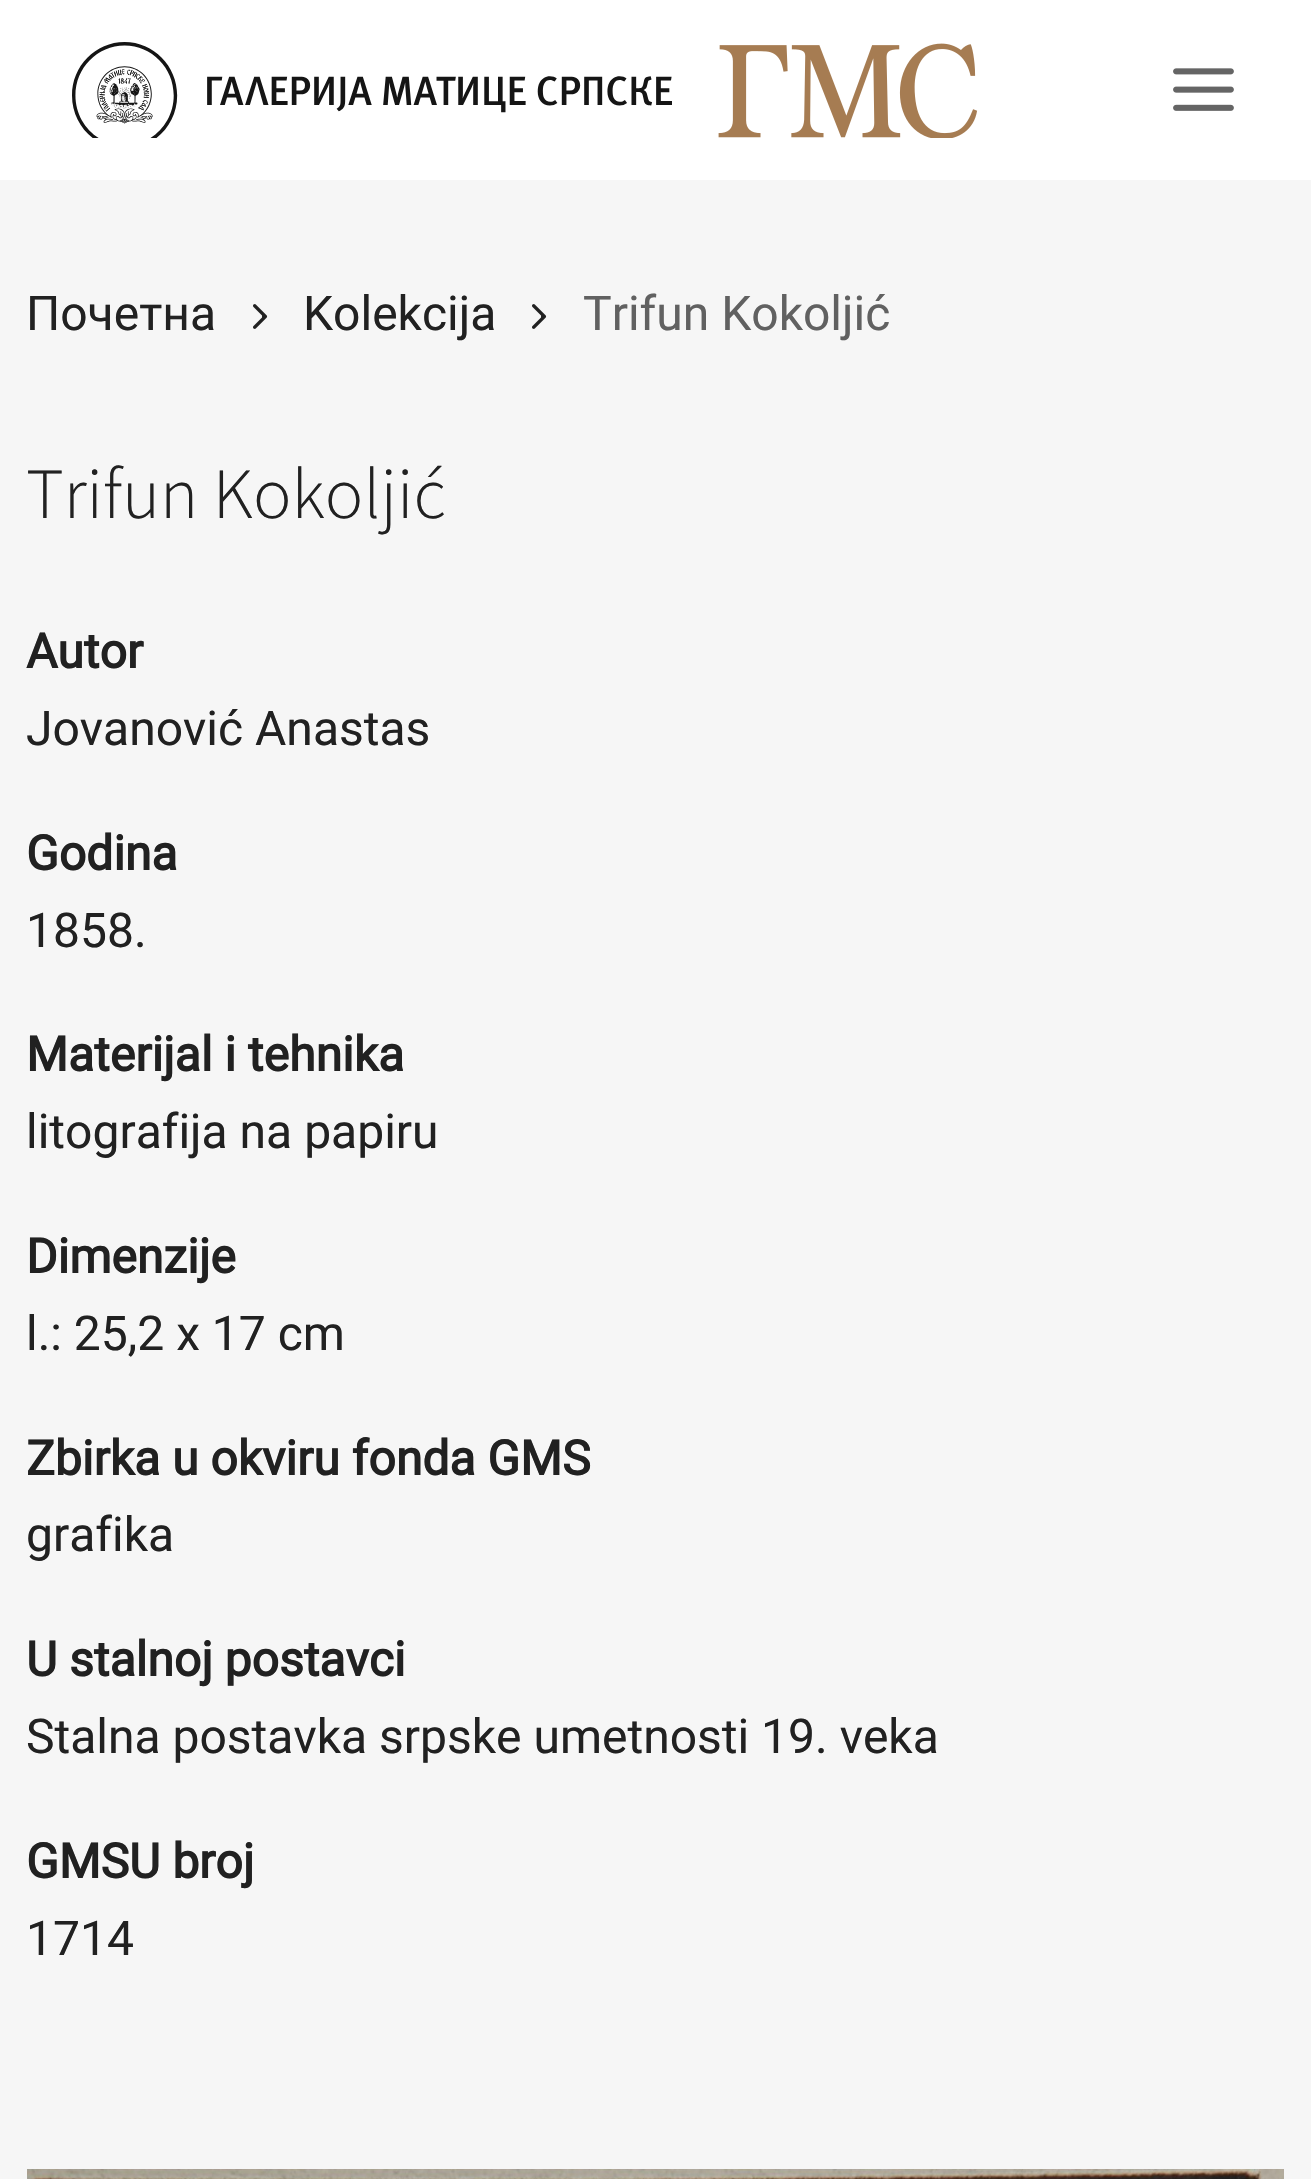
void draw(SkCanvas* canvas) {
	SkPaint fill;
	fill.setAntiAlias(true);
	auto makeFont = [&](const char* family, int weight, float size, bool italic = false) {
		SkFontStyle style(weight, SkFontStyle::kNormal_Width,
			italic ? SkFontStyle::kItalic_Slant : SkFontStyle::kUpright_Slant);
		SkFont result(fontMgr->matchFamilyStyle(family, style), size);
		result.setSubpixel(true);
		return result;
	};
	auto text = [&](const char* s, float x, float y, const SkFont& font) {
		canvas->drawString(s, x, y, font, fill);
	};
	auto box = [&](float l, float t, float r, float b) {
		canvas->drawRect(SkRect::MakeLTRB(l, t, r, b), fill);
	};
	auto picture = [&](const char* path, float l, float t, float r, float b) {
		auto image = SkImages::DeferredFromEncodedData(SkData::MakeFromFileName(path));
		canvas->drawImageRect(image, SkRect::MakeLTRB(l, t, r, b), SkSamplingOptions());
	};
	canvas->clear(0xFFFFFFFF);
	picture("image0.png", 72, 42, 672, 138);
	picture("image1.png", 718, 43, 978, 138);
	picture("image2.png", 1173, 68, 1234, 111);
	fill.setColor(0xFFF6F6F6);
	box(0, 180, 1311, 2179);
	picture("image3.png", 253, 304, 268, 329);
	picture("image3.png", 532, 304, 547, 329);
	picture("image4.png", 27, 2169, 1284, 2179);
	auto font1 = makeFont("Roboto", 400, 48);
	fill.setColor(0xFF212121);
	text("Почетна", 26, 330, font1);
	text("Kolekcija", 303, 330, font1);
	fill.setColor(0xFF616161);
	text("Trifun Kokoljić", 583, 330, font1);
	auto font2 = makeFont("Source Sans 3", 300, 72);
	fill.setColor(0xFF212121);
	text("Trifun Kokoljić", 26, 518, font2);
	auto font3 = makeFont("Roboto", 700, 48);
	text("Autor", 26, 668, font3);
	text("Jovanović Anastas", 26, 745, font1);
	text("Godina", 26, 870, font3);
	text("1858.", 26, 947, font1);
	text("Materijal i tehnika", 26, 1071, font3);
	text("litografija na papiru", 26, 1148, font1);
	text("Dimenzije", 26, 1273, font3);
	text("l.: 25,2 x 17 cm", 26, 1350, font1);
	text("Zbirka u okviru fonda GMS", 26, 1475, font3);
	text("grafika", 26, 1551, font1);
	text("U stalnoj postavci", 26, 1676, font3);
	text("Stalna postavka srpske umetnosti 19. veka", 26, 1753, font1);
	text("GMSU broj", 26, 1878, font3);
	text("1714", 26, 1955, font1);
}
